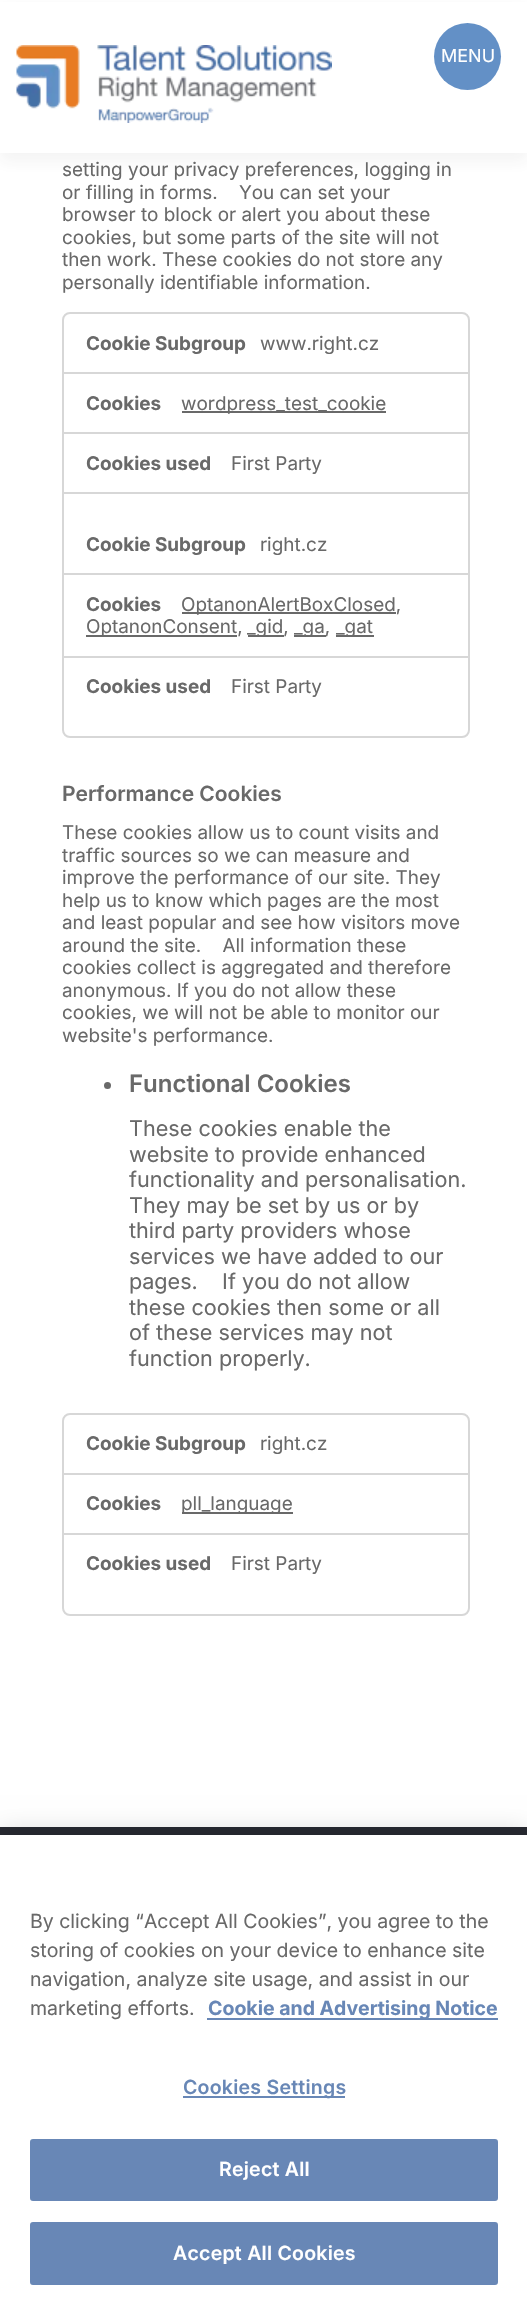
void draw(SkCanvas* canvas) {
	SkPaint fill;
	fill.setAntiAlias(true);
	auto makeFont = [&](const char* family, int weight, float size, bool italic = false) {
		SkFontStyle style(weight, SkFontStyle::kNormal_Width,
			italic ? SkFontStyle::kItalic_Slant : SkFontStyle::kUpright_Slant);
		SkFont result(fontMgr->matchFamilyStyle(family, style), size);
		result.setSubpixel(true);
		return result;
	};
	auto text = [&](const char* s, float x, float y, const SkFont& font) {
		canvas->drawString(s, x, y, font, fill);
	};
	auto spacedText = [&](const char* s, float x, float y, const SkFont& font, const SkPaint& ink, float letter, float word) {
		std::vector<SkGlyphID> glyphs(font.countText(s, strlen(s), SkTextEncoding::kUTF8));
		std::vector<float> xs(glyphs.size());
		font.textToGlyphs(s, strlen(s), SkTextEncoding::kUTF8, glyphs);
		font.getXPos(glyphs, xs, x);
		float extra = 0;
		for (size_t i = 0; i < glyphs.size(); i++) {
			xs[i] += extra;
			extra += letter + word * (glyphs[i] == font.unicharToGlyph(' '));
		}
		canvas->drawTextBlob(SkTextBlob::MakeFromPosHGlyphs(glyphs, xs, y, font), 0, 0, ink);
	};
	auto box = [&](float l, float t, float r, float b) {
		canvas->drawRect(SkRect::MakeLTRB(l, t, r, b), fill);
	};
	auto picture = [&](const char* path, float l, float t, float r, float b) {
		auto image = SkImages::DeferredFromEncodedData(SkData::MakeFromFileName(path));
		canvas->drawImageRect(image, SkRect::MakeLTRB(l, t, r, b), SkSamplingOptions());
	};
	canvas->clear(0xFFFFFFFF);
	fill.setColor(0x0F323232);
	fill.setMaskFilter(SkMaskFilter::MakeBlur(kNormal_SkBlurStyle, 7.5f));
	canvas->drawRect(SkRect::MakeLTRB(0, 8, 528, 161), fill);
	fill.setMaskFilter(nullptr);
	fill.setColor(0xFFFFFFFF);
	box(0, 2, 527, 153);
	fill.setColor(0xFF6390C6);
	canvas->drawCircle(467.5f, 56.5f, 33.5f, fill);
	picture("image0.png", 16, 45, 332, 123);
	fill.setStyle(SkPaint::kStroke_Style);
	fill.setStrokeWidth(2);
	fill.setColor(0xFFD7D7D7);
	canvas->drawRoundRect(SkRect::MakeLTRB(63, 313, 469, 737), 7, 7, fill);
	fill.setStyle(SkPaint::kFill_Style);
	box(63, 372, 468, 374);
	box(63, 432, 468, 434);
	fill.setColor(0xFF696969);
	box(182, 411, 386, 413);
	fill.setColor(0xFFD7D7D7);
	box(63, 492, 468, 494);
	box(63, 573, 468, 575);
	box(63, 656, 468, 658);
	fill.setColor(0xFF696969);
	box(182, 612, 396, 614);
	box(86, 635, 237, 637);
	box(248, 635, 284, 637);
	box(294, 635, 326, 637);
	box(336, 635, 374, 637);
	canvas->drawCircle(107.5f, 1085.5f, 3.5f, fill);
	fill.setStyle(SkPaint::kStroke_Style);
	fill.setColor(0xFFD7D7D7);
	canvas->drawRoundRect(SkRect::MakeLTRB(63, 1414, 469, 1615), 7, 7, fill);
	fill.setStyle(SkPaint::kFill_Style);
	box(63, 1473, 468, 1475);
	box(63, 1533, 468, 1535);
	fill.setColor(0xFF696969);
	box(182, 1512, 293, 1514);
	fill.setColor(0xFF282A32);
	box(0, 1827, 527, 1835);
	fill.setColor(0x33000000);
	fill.setMaskFilter(SkMaskFilter::MakeBlur(kNormal_SkBlurStyle, 13.5f));
	canvas->drawRect(SkRect::MakeLTRB(0, 1835, 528, 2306), fill);
	fill.setMaskFilter(nullptr);
	fill.setColor(0xFFFFFFFF);
	box(0, 1835, 527, 2305);
	fill.setColor(0xFF6887B6);
	box(207, 2018, 498, 2020);
	box(183, 2096, 345, 2098);
	canvas->drawRoundRect(SkRect::MakeLTRB(31, 2140, 497, 2200), 2, 2, fill);
	fill.setStyle(SkPaint::kStroke_Style);
	canvas->drawRoundRect(SkRect::MakeLTRB(31, 2140, 497, 2200), 2, 2, fill);
	fill.setStyle(SkPaint::kFill_Style);
	canvas->drawRoundRect(SkRect::MakeLTRB(31, 2223, 497, 2284), 2, 2, fill);
	fill.setStyle(SkPaint::kStroke_Style);
	canvas->drawRoundRect(SkRect::MakeLTRB(31, 2223, 497, 2284), 2, 2, fill);
	auto font1 = makeFont("Inter", 400, 18);
	fill.setStyle(SkPaint::kFill_Style);
	fill.setColor(0xFFFFFFFF);
	text("MENU", 441, 62, font1);
	auto font2 = makeFont("Inter", 400, 18.9f);
	fill.setColor(0xFF696969);
	text("setting your privacy preferences, logging in", 62, 176, font2);
	text("or filling in forms.    You can set your", 62, 199, font2);
	text("browser to block or alert you about these", 62, 221, font2);
	text("cookies, but some parts of the site will not", 62, 244, font2);
	text("then work. These cookies do not store any", 62, 266, font2);
	text("personally identifiable information.", 62, 289, font2);
	auto font3 = makeFont("Inter", 700, 18.9f);
	text("Cookie Subgroup", 86, 350, font3);
	text("www.right.cz", 260, 350, font2);
	text("Cookies", 86, 410, font3);
	text("wordpress_test_cookie", 181, 410, font2);
	text("Cookies used", 86, 470, font3);
	text("First Party", 231, 470, font2);
	text("Cookie Subgroup", 86, 551, font3);
	text("right.cz", 260, 551, font2);
	text("Cookies", 86, 611, font3);
	text("OptanonAlertBoxClosed,", 181, 611, font2);
	text("OptanonConsent,", 86, 633, font2);
	text("_gid,", 247, 633, font2);
	text("_ga,", 294, 633, font2);
	text("_gat", 336, 633, font2);
	text("Cookies used", 86, 693, font3);
	text("First Party", 231, 693, font2);
	auto font4 = makeFont("Inter", 600, 21);
	text("Performance Cookies", 62, 801, font4);
	text("These cookies allow us to count visits and", 62, 839, font2);
	text("traffic sources so we can measure and", 62, 862, font2);
	text("improve the performance of our site. They", 62, 884, font2);
	text("help us to know which pages are the most", 62, 907, font2);
	text("and least popular and see how visitors move", 62, 929, font2);
	text("around the site.    All information these", 62, 952, font2);
	text("cookies collect is aggregated and therefore", 62, 974, font2);
	text("anonymous. If you do not allow these", 62, 997, font2);
	text("cookies, we will not be able to monitor our", 62, 1019, font2);
	text("website's performance.", 62, 1042, font2);
	auto font5 = makeFont("Inter", 600, 24);
	text("Functional Cookies", 129, 1092, font5);
	auto font6 = makeFont("Inter", 400, 21.6f);
	text("These cookies enable the", 129, 1136, font6);
	text("website to provide enhanced", 129, 1162, font6);
	text("functionality and personalisation.", 129, 1187, font6);
	text("They may be set by us or by", 129, 1213, font6);
	text("third party providers whose", 129, 1238, font6);
	text("services we have added to our", 129, 1264, font6);
	text("pages.    If you do not allow", 129, 1289, font6);
	text("these cookies then some or all", 129, 1315, font6);
	text("of these services may not", 129, 1340, font6);
	text("function properly.", 129, 1366, font6);
	text("Cookie Subgroup", 86, 1450, font3);
	text("right.cz", 260, 1450, font2);
	text("Cookies", 86, 1510, font3);
	text("pll_language", 181, 1510, font2);
	text("Cookies used", 86, 1570, font3);
	text("First Party", 231, 1570, font2);
	auto font7 = makeFont("Inter", 400, 19.5f);
	text("By clicking “Accept All Cookies”, you agree to the", 30, 1928, font7);
	text("storing of cookies on your device to enhance site", 30, 1957, font7);
	text("navigation, analyze site usage, and assist in our", 30, 1986, font7);
	text("marketing efforts.", 30, 2015, font7);
	auto font8 = makeFont("Inter", 700, 19.5f);
	fill.setColor(0xFF6887B6);
	text("Cookie and Advertising Notice", 208, 2015, font8);
	auto font9 = makeFont("Inter", 600, 19.5f);
	spacedText("Cookies Settings", 183, 2094, font9, fill, 0.25f, 0);
	fill.setColor(0xFFFFFFFF);
	spacedText("Reject All", 219, 2176, font9, fill, 0.25f, 0);
	spacedText("Accept All Cookies", 173, 2260, font9, fill, 0.25f, 0);
}
